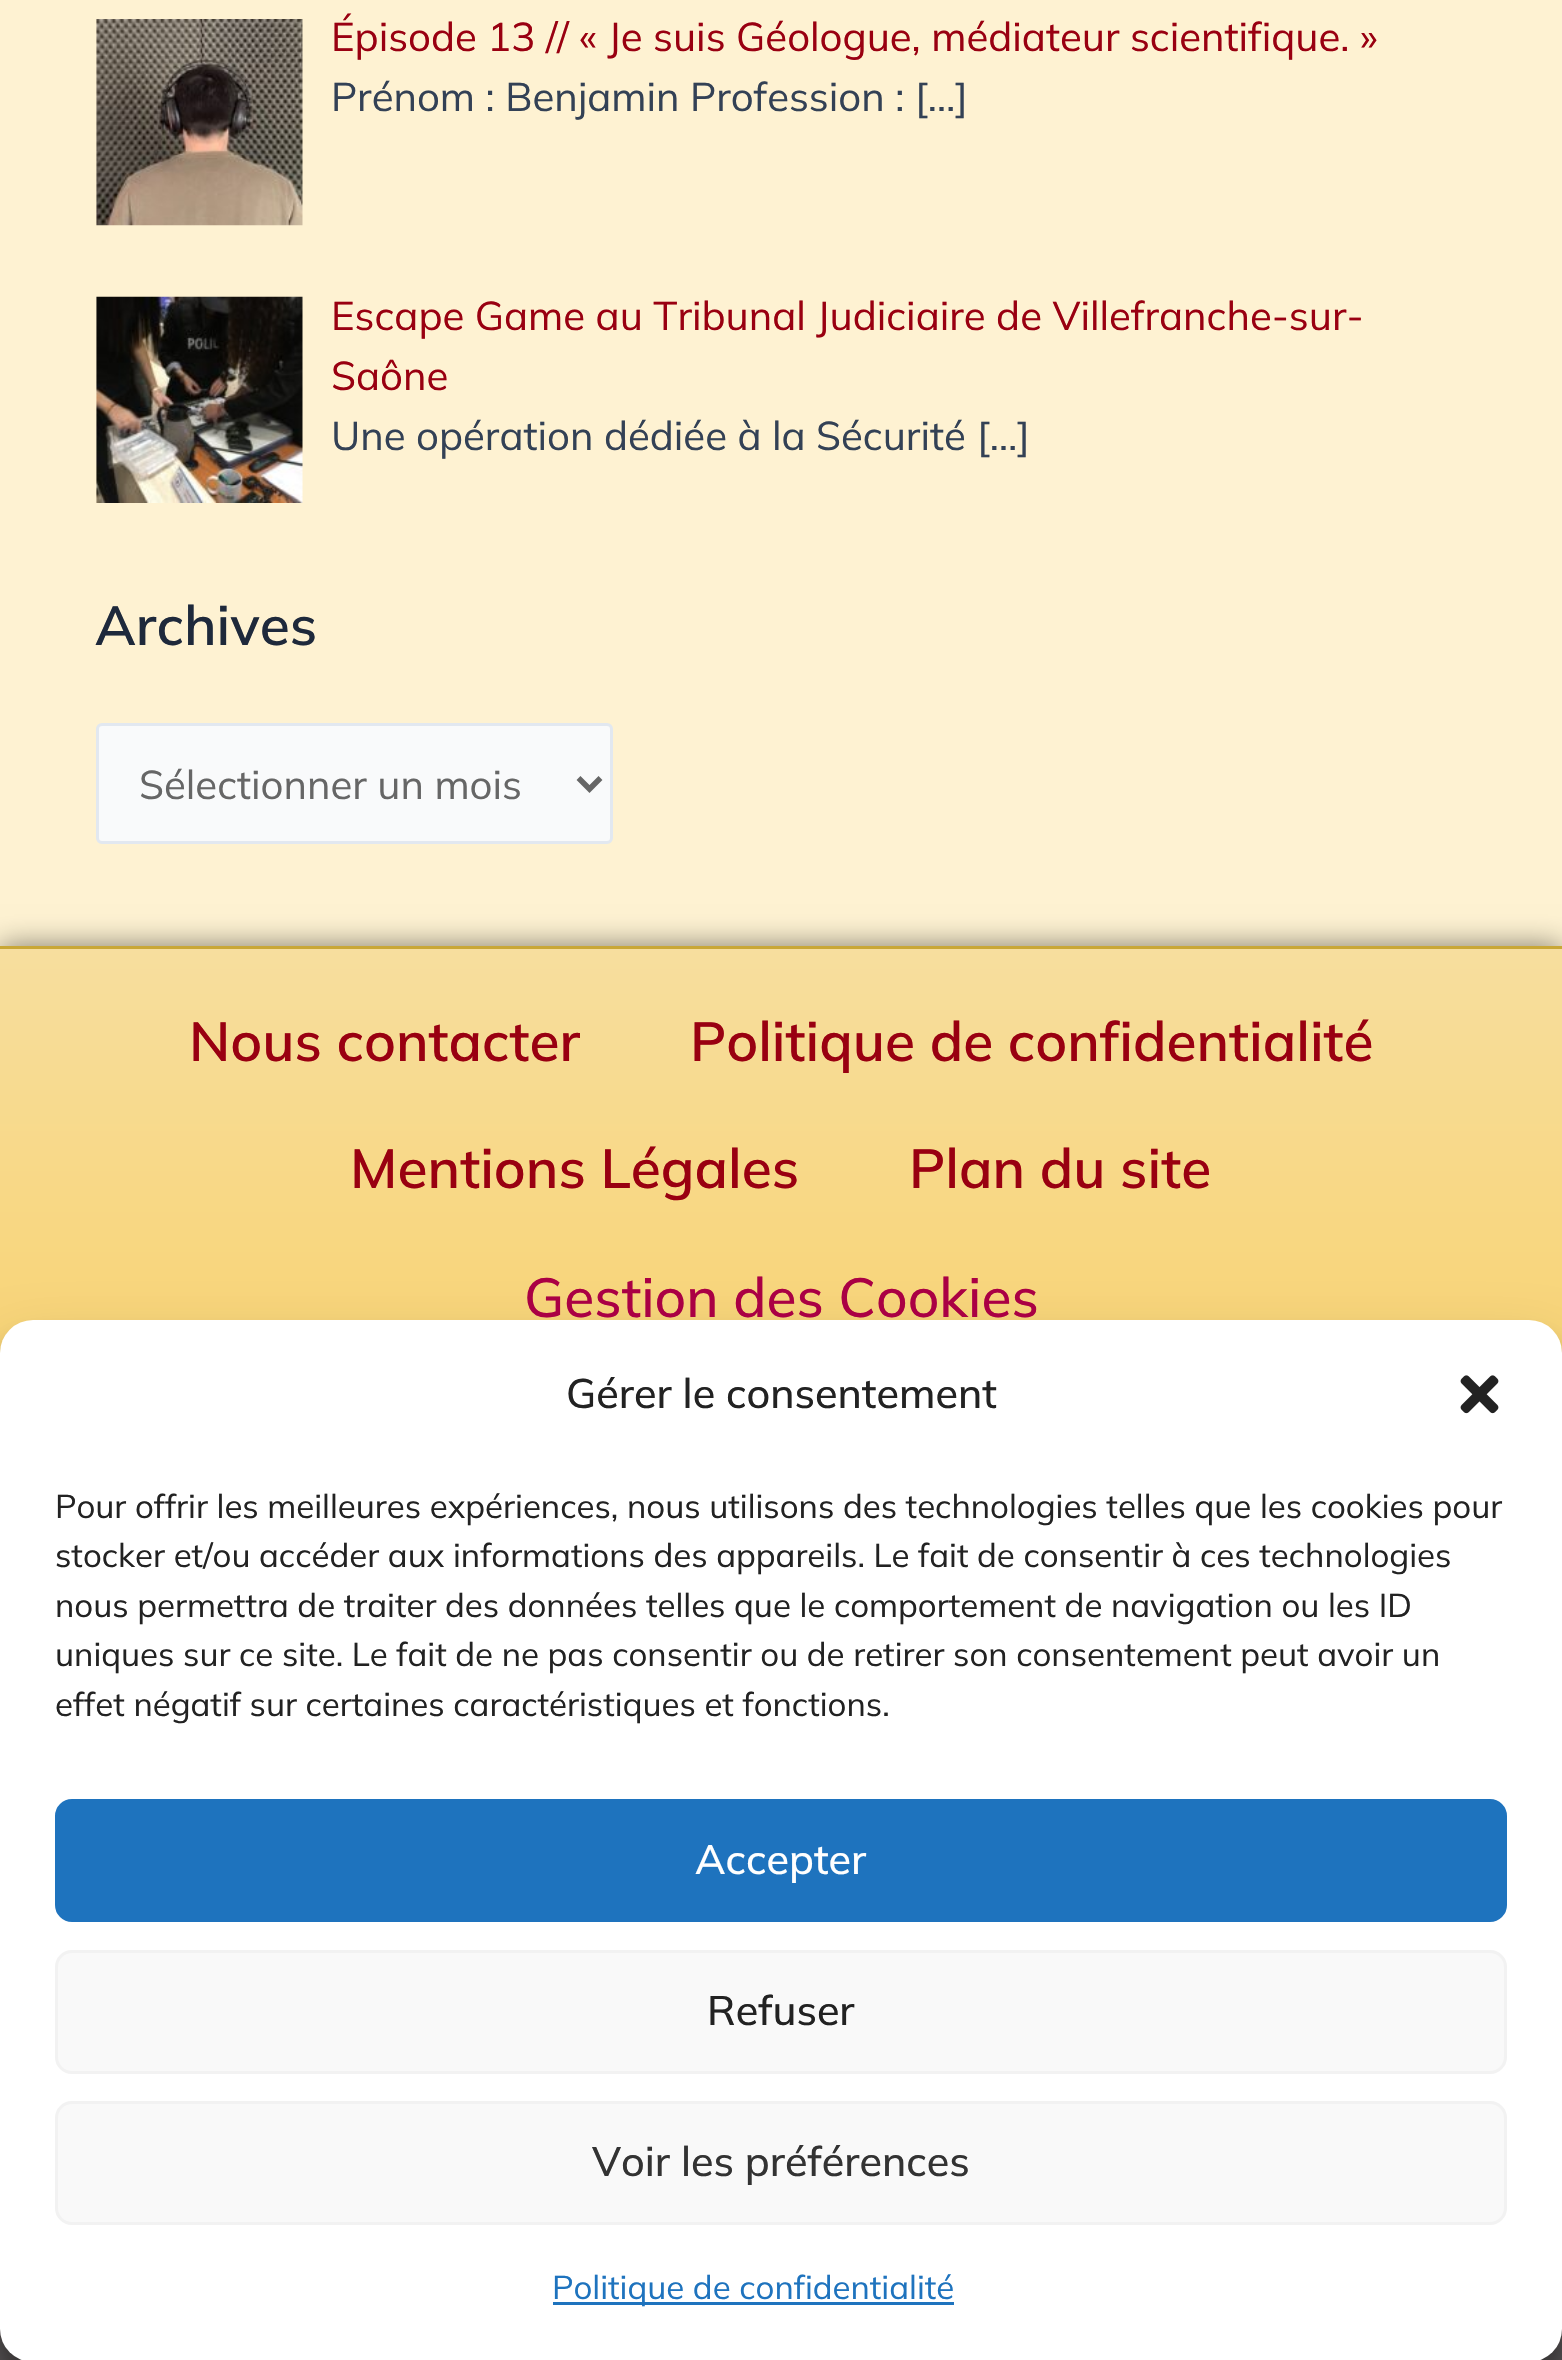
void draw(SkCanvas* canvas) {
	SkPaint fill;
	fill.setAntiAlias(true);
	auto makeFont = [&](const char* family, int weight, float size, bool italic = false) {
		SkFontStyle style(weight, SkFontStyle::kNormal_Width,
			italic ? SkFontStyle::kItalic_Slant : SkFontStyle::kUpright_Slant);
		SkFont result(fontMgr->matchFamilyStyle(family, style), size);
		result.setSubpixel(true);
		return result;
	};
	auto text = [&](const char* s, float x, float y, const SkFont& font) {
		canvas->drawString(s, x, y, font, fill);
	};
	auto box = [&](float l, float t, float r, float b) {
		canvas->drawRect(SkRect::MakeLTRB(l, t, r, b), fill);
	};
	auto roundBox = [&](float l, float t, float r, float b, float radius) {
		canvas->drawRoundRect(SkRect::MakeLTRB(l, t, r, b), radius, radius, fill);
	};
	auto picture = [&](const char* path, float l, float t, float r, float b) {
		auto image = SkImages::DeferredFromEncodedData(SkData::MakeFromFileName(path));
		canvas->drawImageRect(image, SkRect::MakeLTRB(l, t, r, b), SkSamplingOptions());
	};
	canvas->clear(0xFFFEF2D2);
	picture("image0.png", 96, 19, 303, 226);
	picture("image1.png", 96, 296, 303, 503);
	fill.setColor(0xFFF9FAFB);
	canvas->drawRoundRect(SkRect::MakeLTRB(97.5f, 724.5f, 611.5f, 842.5f), 4.5f, 4.5f, fill);
	fill.setStyle(SkPaint::kStroke_Style);
	fill.setStrokeWidth(3);
	fill.setColor(0xFFE2E8F0);
	canvas->drawRoundRect(SkRect::MakeLTRB(97.5f, 724.5f, 611.5f, 842.5f), 4.5f, 4.5f, fill);
	fill.setStrokeWidth(5.5f);
	fill.setColor(0xFF666666);
	canvas->drawPath(SkPathBuilder().moveTo(578.5f, 778).lineTo(589.5f, 789).lineTo(600.5f, 778).detach(), fill);
	fill.setStyle(SkPaint::kFill_Style);
	fill.setColor(0x80000000);
	fill.setMaskFilter(SkMaskFilter::MakeBlur(kNormal_SkBlurStyle, 14));
	canvas->drawRect(SkRect::MakeLTRB(0, 946, 1562, 1999), fill);
	fill.setMaskFilter(nullptr);
	{
		const SkColor colors[] = {0xFFF7DE9E, 0xFFFAC436};
		const float stops[] = {0, 1};
		const SkPoint ends[] = {{781, 949}, {781, 1999}};
		fill.setShader(SkGradientShader::MakeLinear(ends, colors, stops, 2, SkTileMode::kClamp));
		fill.setAlpha(255);
	}
	box(0, 949, 1562, 1353);
	fill.setShader(nullptr);
	fill.setColor(0xFFC9A736);
	box(0, 946, 1562, 949);
	fill.setColor(0xFF565253);
	box(0, 2329, 1562, 2360);
	fill.setColor(0x3B000000);
	fill.setMaskFilter(SkMaskFilter::MakeBlur(kNormal_SkBlurStyle, 8));
	canvas->drawRoundRect(SkRect::MakeLTRB(0, 1337, 1562, 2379), 33, 33, fill);
	fill.setMaskFilter(nullptr);
	fill.setColor(0x30000000);
	fill.setMaskFilter(SkMaskFilter::MakeBlur(kNormal_SkBlurStyle, 27.5f));
	canvas->drawRoundRect(SkRect::MakeLTRB(0, 1348, 1562, 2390), 33, 33, fill);
	fill.setMaskFilter(nullptr);
	fill.setColor(0xFFFFFFFF);
	roundBox(0, 1320, 1562, 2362, 33);
	picture("image2.png", 1460, 1375, 1499, 1414);
	fill.setColor(0xFF1E73BE);
	canvas->drawRoundRect(SkRect::MakeLTRB(56.5f, 1800.5f, 1505.5f, 1920.5f), 15.5f, 15.5f, fill);
	fill.setStyle(SkPaint::kStroke_Style);
	fill.setStrokeWidth(3);
	canvas->drawRoundRect(SkRect::MakeLTRB(56.5f, 1800.5f, 1505.5f, 1920.5f), 15.5f, 15.5f, fill);
	fill.setStyle(SkPaint::kFill_Style);
	fill.setColor(0xFFF9F9F9);
	canvas->drawRoundRect(SkRect::MakeLTRB(56.5f, 1951.5f, 1505.5f, 2072.5f), 15.5f, 15.5f, fill);
	fill.setStyle(SkPaint::kStroke_Style);
	fill.setColor(0xFFF2F2F2);
	canvas->drawRoundRect(SkRect::MakeLTRB(56.5f, 1951.5f, 1505.5f, 2072.5f), 15.5f, 15.5f, fill);
	fill.setStyle(SkPaint::kFill_Style);
	fill.setColor(0xFFF9F9F9);
	canvas->drawRoundRect(SkRect::MakeLTRB(56.5f, 2102.5f, 1505.5f, 2223.5f), 15.5f, 15.5f, fill);
	fill.setStyle(SkPaint::kStroke_Style);
	fill.setColor(0xFFF2F2F2);
	canvas->drawRoundRect(SkRect::MakeLTRB(56.5f, 2102.5f, 1505.5f, 2223.5f), 15.5f, 15.5f, fill);
	fill.setStyle(SkPaint::kFill_Style);
	fill.setColor(0xFF1E73BE);
	box(553, 2302, 954, 2305);
	auto font1 = makeFont("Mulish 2", 200, 40.1f);
	fill.setColor(0xFF990011);
	text("Épisode 13 // « Je suis Géologue, médiateur scientifique. »", 331, 51, font1);
	fill.setColor(0xFF334155);
	text("Prénom : Benjamin Profession :", 331, 111, font1);
	text("[…]", 915, 111, font1);
	fill.setColor(0xFF990011);
	text("Escape Game au Tribunal Judiciaire de Villefranche-sur-", 331, 330, font1);
	text("Saône", 331, 390, font1);
	fill.setColor(0xFF334155);
	text("Une opération dédiée à la Sécurité", 331, 450, font1);
	text("[…]", 977, 450, font1);
	auto font2 = makeFont("Mulish", 200, 55);
	fill.setColor(0xFF1E293B);
	text("Archives", 95, 645, font2);
	fill.setColor(0xFF666666);
	text("Sélectionner un mois", 139, 799, font1);
	fill.setColor(0xFF990011);
	text("Nous contacter", 189, 1061, font2);
	text("Politique de confidentialité", 690, 1061, font2);
	text("Mentions Légales", 350, 1188, font2);
	text("Plan du site", 909, 1188, font2);
	auto font3 = makeFont("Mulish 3", 200, 55);
	fill.setColor(0xFFAA0044);
	text("Gestion des Cookies", 524, 1317, font3);
	auto font4 = makeFont("Mulish 3", 200, 41.25f);
	fill.setColor(0xFF222222);
	text("Gérer le consentement", 566, 1408, font4);
	auto font5 = makeFont("Mulish 2", 200, 33);
	text("Pour offrir les meilleures expériences, nous utilisons des technologies telles que les cookies pour", 55, 1518, font5);
	text("stocker et/ou accéder aux informations des appareils. Le fait de consentir à ces technologies", 55, 1567, font5);
	text("nous permettra de traiter des données telles que le comportement de navigation ou les ID", 55, 1617, font5);
	text("uniques sur ce site. Le fait de ne pas consentir ou de retirer son consentement peut avoir un", 55, 1666, font5);
	text("effet négatif sur certaines caractéristiques et fonctions.", 55, 1716, font5);
	fill.setColor(0xFFFFFFFF);
	text("Accepter", 695, 1874, font4);
	fill.setColor(0xFF222222);
	text("Refuser", 707, 2025, font4);
	fill.setColor(0xFF333333);
	text("Voir les préférences", 592, 2176, font4);
	fill.setColor(0xFF1E73BE);
	text("Politique de confidentialité", 552, 2299, font5);
}
